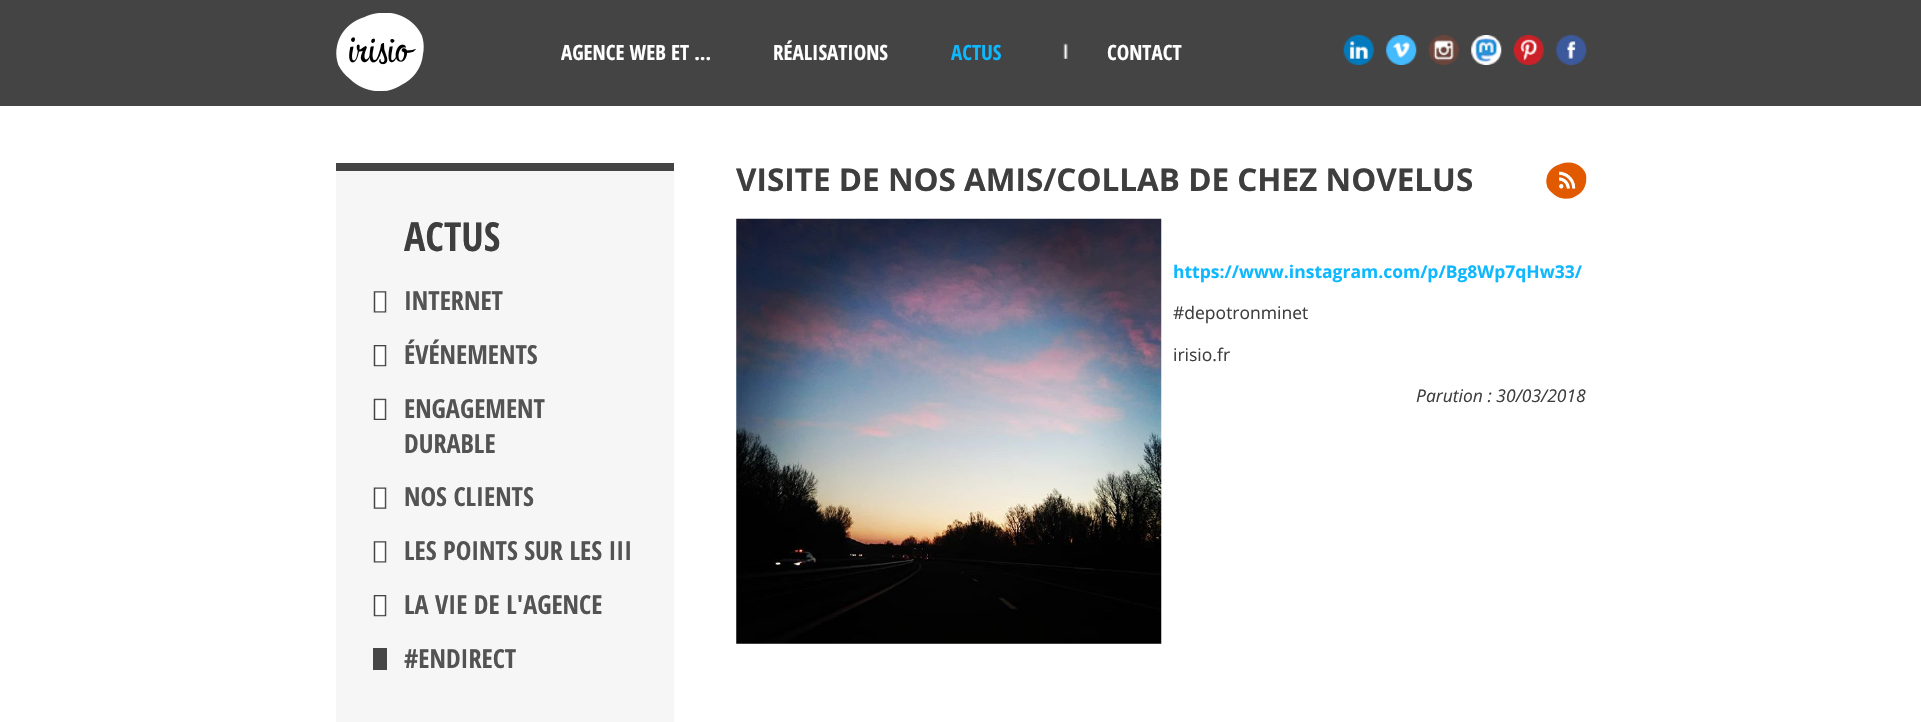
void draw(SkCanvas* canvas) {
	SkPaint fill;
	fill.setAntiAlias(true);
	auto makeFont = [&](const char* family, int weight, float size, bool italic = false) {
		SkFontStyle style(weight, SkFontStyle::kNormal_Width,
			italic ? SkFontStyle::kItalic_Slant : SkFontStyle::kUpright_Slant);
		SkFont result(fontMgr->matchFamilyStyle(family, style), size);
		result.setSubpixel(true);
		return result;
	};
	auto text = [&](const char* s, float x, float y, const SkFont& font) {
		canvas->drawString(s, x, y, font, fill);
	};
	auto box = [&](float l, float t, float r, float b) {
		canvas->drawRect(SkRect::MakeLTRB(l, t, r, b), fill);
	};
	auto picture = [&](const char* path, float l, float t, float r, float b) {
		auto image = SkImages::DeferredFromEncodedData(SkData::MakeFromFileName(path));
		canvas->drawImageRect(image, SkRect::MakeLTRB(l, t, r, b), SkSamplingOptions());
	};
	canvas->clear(0xFFFFFFFF);
	fill.setColor(0xFF444444);
	box(0, 0, 1921, 106);
	picture("image0.png", 336, 13, 424, 91);
	picture("image1.png", 1063, 43, 1068, 59);
	picture("image2.png", 1343, 35, 1374, 65);
	picture("image3.png", 1386, 35, 1417, 65);
	picture("image4.png", 1428, 35, 1459, 65);
	picture("image5.png", 1471, 35, 1502, 65);
	picture("image6.png", 1513, 35, 1544, 65);
	picture("image7.png", 1556, 35, 1587, 65);
	fill.setColor(0xFFF6F6F6);
	box(336, 171, 674, 722);
	fill.setColor(0xFF444444);
	box(336, 163, 674, 171);
	picture("image8.png", 373, 291, 387, 313);
	picture("image9.png", 373, 345, 387, 367);
	picture("image10.png", 373, 398, 387, 420);
	picture("image11.png", 373, 487, 387, 509);
	picture("image8.png", 373, 541, 387, 563);
	picture("image9.png", 373, 595, 387, 617);
	fill.setColor(0xFF464646);
	box(373, 648, 387, 670);
	picture("image12.png", 1546, 162, 1587, 199);
	picture("image13.png", 736, 218, 1162, 644);
	auto font1 = makeFont("Open Sans Condensed", 700, 21);
	fill.setColor(0xFFFFFFFF);
	text("AGENCE WEB ET ...", 561, 60, font1);
	text("RÉALISATIONS", 773, 60, font1);
	fill.setColor(0xFF0EB8FF);
	text("ACTUS", 951, 60, font1);
	fill.setColor(0xFFFFFFFF);
	text("CONTACT", 1107, 60, font1);
	auto font2 = makeFont("Open Sans Condensed", 700, 40);
	fill.setColor(0xFF3E3E3E);
	text("ACTUS", 404, 251, font2);
	auto font3 = makeFont("Open Sans Condensed", 700, 26.25f);
	fill.setColor(0xFF535353);
	text("INTERNET", 404, 310, font3);
	text("ÉVÉNEMENTS", 404, 364, font3);
	text("ENGAGEMENT", 404, 418, font3);
	text("DURABLE", 404, 453, font3);
	text("NOS CLIENTS", 404, 506, font3);
	text("LES POINTS SUR LES III", 404, 560, font3);
	text("LA VIE DE L'AGENCE", 404, 614, font3);
	text("#ENDIRECT", 404, 668, font3);
	auto font4 = makeFont("Open Sans", 700, 31.5f);
	fill.setColor(0xFF3E3E3E);
	text("VISITE DE NOS AMIS/COLLAB DE CHEZ NOVELUS", 736, 191, font4);
	auto font5 = makeFont("Open Sans", 700, 17.5f);
	fill.setColor(0xFF0EB8FF);
	text("https://www.instagram.com/p/Bg8Wp7qHw33/", 1173, 278, font5);
	auto font6 = makeFont("Open Sans", 400, 17.5f);
	fill.setColor(0xFF3E3E3E);
	text("#depotronminet", 1173, 319, font6);
	text("irisio.fr", 1173, 361, font6);
	auto font7 = makeFont("Open Sans", 400, 17.5f, true);
	text("Parution : 30/03/2018", 1416, 402, font7);
}
